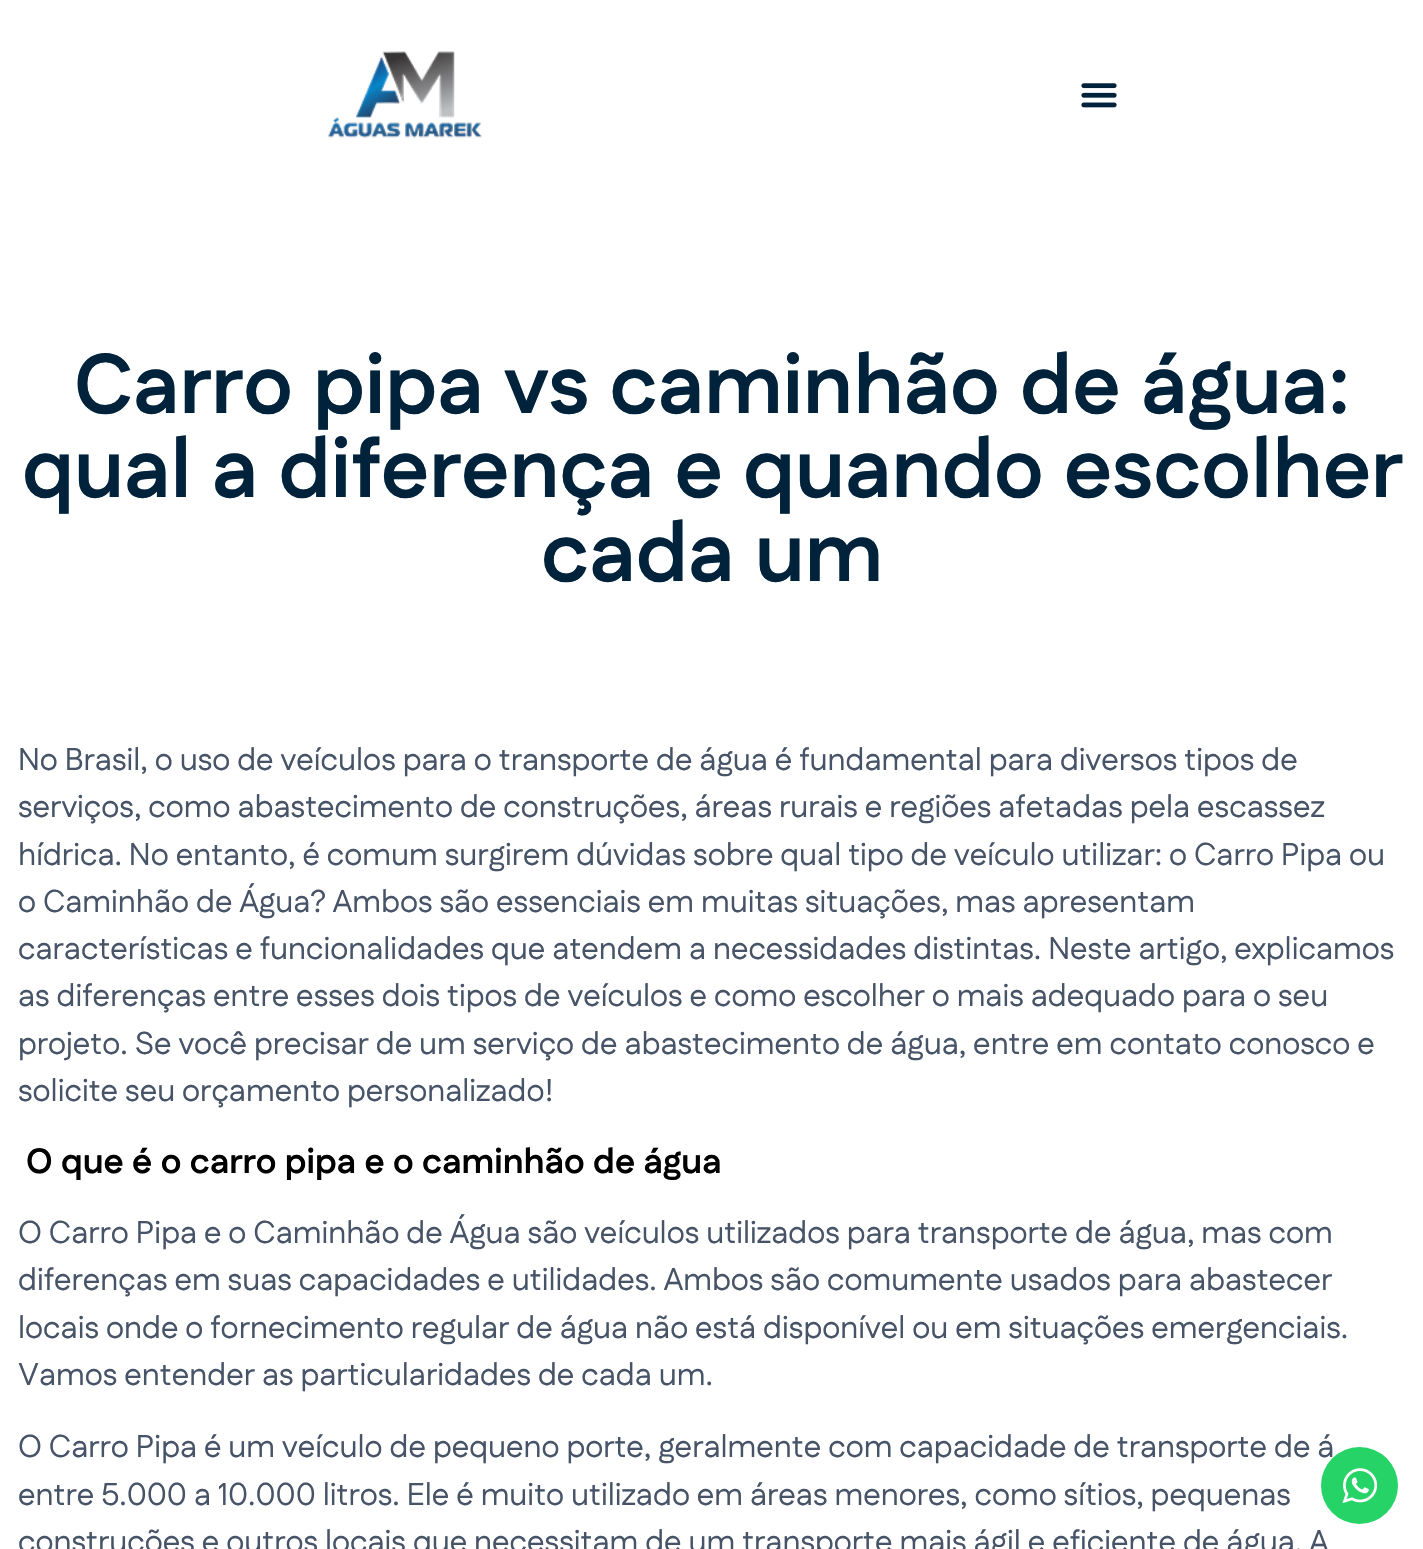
void draw(SkCanvas* canvas) {
	SkPaint fill;
	fill.setAntiAlias(true);
	auto makeFont = [&](const char* family, int weight, float size, bool italic = false) {
		SkFontStyle style(weight, SkFontStyle::kNormal_Width,
			italic ? SkFontStyle::kItalic_Slant : SkFontStyle::kUpright_Slant);
		SkFont result(fontMgr->matchFamilyStyle(family, style), size);
		result.setSubpixel(true);
		return result;
	};
	auto text = [&](const char* s, float x, float y, const SkFont& font) {
		canvas->drawString(s, x, y, font, fill);
	};
	auto picture = [&](const char* path, float l, float t, float r, float b) {
		auto image = SkImages::DeferredFromEncodedData(SkData::MakeFromFileName(path));
		canvas->drawImageRect(image, SkRect::MakeLTRB(l, t, r, b), SkSamplingOptions());
	};
	canvas->clear(0xFFFFFFFF);
	picture("image0.png", 328, 51, 482, 138);
	picture("image1.png", 1081, 83, 1117, 108);
	auto font1 = makeFont("Fustat", 700, 84);
	fill.setColor(0xFF00223B);
	text("Carro pipa vs caminhão de água:", 74, 413, font1);
	text("qual a diferença e quando escolher", 22, 497, font1);
	text("cada um", 541, 581, font1);
	auto font2 = makeFont("Fustat", 400, 31.5f);
	fill.setColor(0xFF475467);
	text("No Brasil, o uso de veículos para o transporte de água é fundamental para diversos tipos de", 18, 770, font2);
	text("serviços, como abastecimento de construções, áreas rurais e regiões afetadas pela escassez", 18, 817, font2);
	text("hídrica. No entanto, é comum surgirem dúvidas sobre qual tipo de veículo utilizar: o Carro Pipa ou", 18, 865, font2);
	text("o Caminhão de Água? Ambos são essenciais em muitas situações, mas apresentam", 18, 912, font2);
	text("características e funcionalidades que atendem a necessidades distintas. Neste artigo, explicamos", 18, 959, font2);
	text("as diferenças entre esses dois tipos de veículos e como escolher o mais adequado para o seu", 18, 1006, font2);
	text("projeto. Se você precisar de um serviço de abastecimento de água, entre em contato conosco e", 18, 1054, font2);
	text("solicite seu orçamento personalizado!", 18, 1101, font2);
	auto font3 = makeFont("Fustat", 700, 35);
	fill.setColor(0xFF000000);
	text("O que é o carro pipa e o caminhão de água", 26, 1173, font3);
	fill.setColor(0xFF475467);
	text("O Carro Pipa e o Caminhão de Água são veículos utilizados para transporte de água, mas com", 18, 1243, font2);
	text("diferenças em suas capacidades e utilidades. Ambos são comumente usados para abastecer", 18, 1290, font2);
	text("locais onde o fornecimento regular de água não está disponível ou em situações emergenciais.", 18, 1338, font2);
	text("Vamos entender as particularidades de cada um.", 18, 1385, font2);
	text("O Carro Pipa é um veículo de pequeno porte, geralmente com capacidade de transporte de á", 18, 1457, font2);
	text("entre 5.000 a 10.000 litros. Ele é muito utilizado em áreas menores, como sítios, pequenas", 18, 1505, font2);
	text("construções e outros locais que necessitam de um transporte mais ágil e eficiente de água. A", 18, 1552, font2);
	fill.setColor(0xFF25D366);
	canvas->drawCircle(1359.5f, 1485.5f, 38.5f, fill);
	picture("image2.png", 1342, 1468, 1377, 1503);
}
